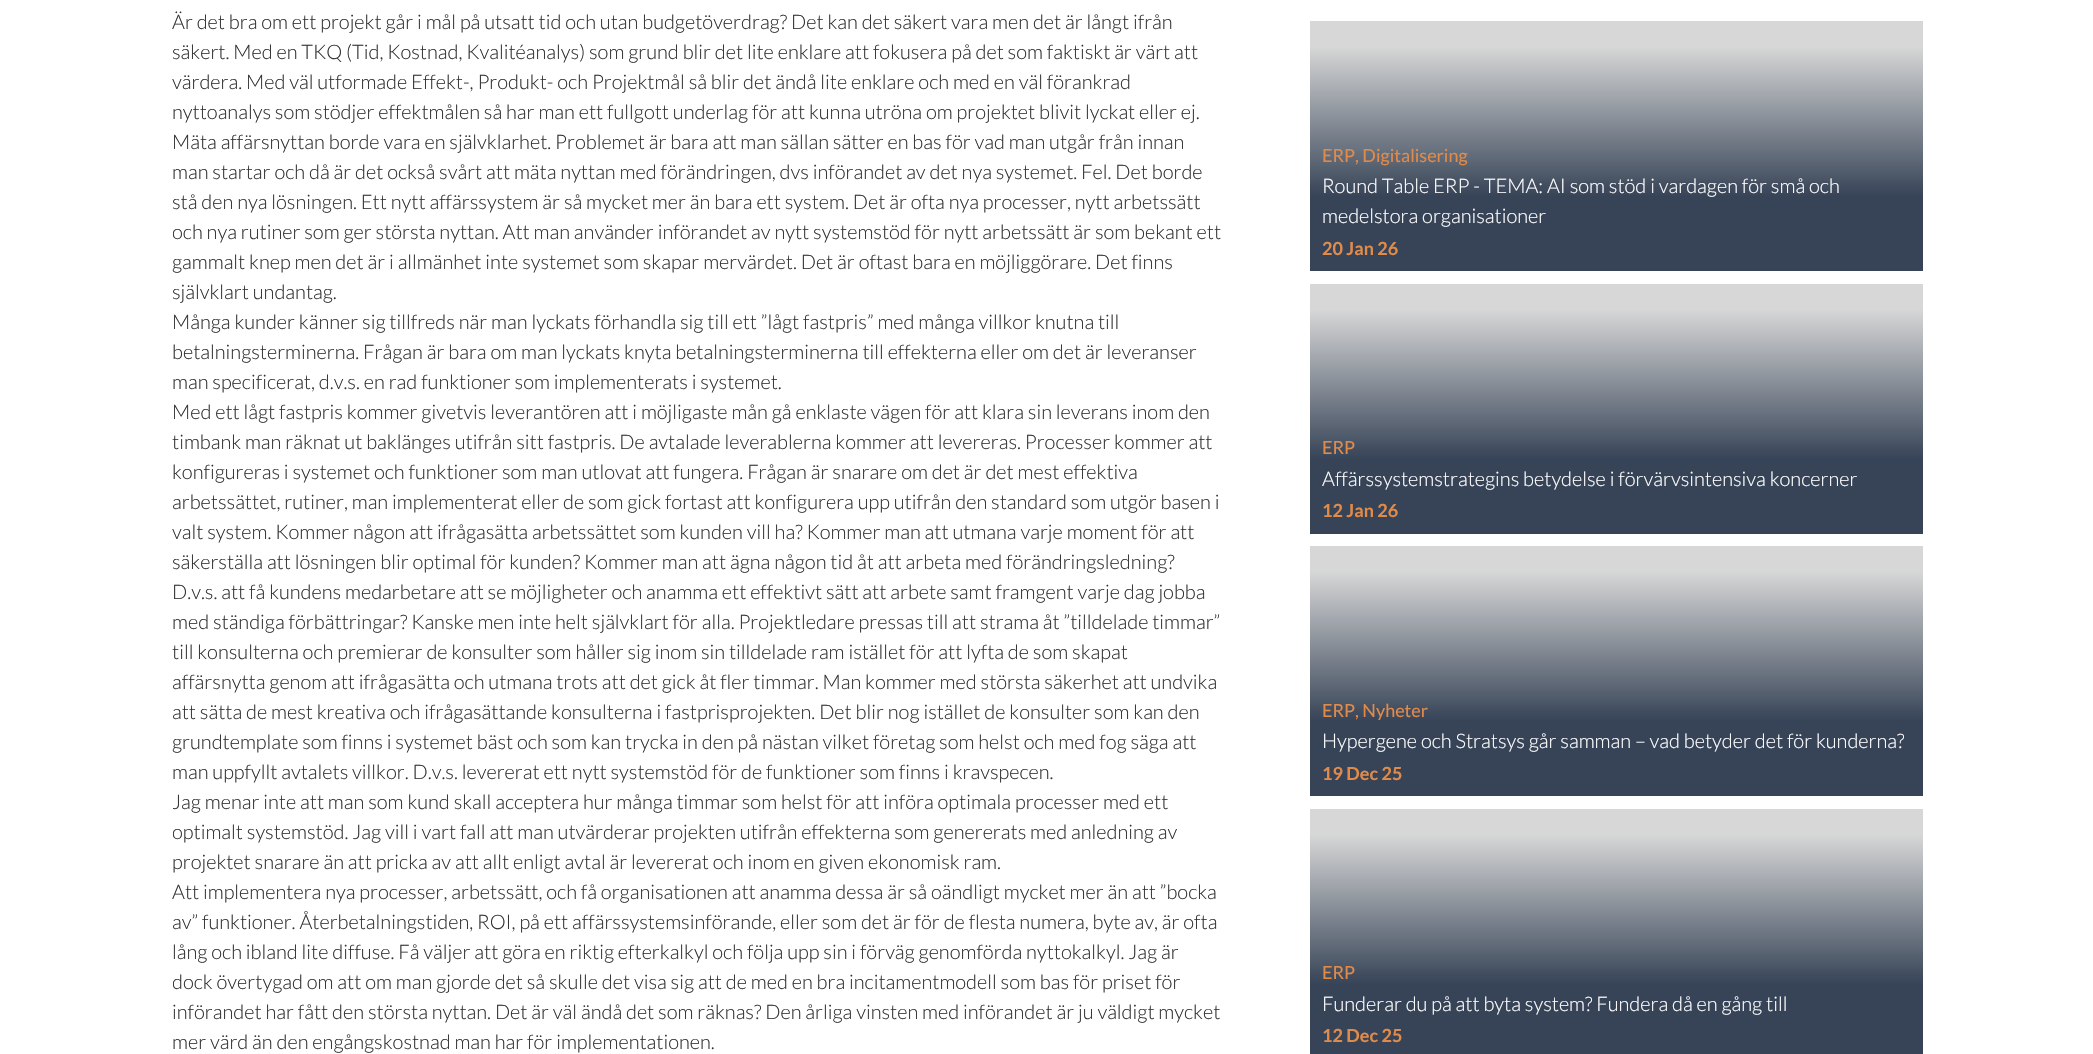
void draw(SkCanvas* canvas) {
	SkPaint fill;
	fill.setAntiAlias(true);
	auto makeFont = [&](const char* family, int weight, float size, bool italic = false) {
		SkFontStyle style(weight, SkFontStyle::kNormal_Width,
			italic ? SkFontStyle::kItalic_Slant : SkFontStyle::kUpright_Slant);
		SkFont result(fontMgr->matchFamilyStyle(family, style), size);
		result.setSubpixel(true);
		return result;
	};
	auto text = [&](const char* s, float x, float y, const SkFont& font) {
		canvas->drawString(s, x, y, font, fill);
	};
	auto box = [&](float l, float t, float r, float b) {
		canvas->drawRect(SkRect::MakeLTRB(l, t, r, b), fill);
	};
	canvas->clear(0xFFFFFFFF);
	{
		const SkColor colors[] = {0xFF374457, 0xFFD7D7D7};
		const float stops[] = {0.3f, 0.9f};
		const SkPoint ends[] = {{1616, 271}, {1616, 21}};
		fill.setShader(SkGradientShader::MakeLinear(ends, colors, stops, 2, SkTileMode::kClamp));
		fill.setAlpha(255);
	}
	box(1310, 21, 1923, 271);
	{
		const SkColor colors[] = {0xFF374457, 0xFFD7D7D7};
		const float stops[] = {0.3f, 0.9f};
		const SkPoint ends[] = {{1616, 534}, {1616, 284}};
		fill.setShader(SkGradientShader::MakeLinear(ends, colors, stops, 2, SkTileMode::kClamp));
		fill.setAlpha(255);
	}
	box(1310, 284, 1923, 534);
	{
		const SkColor colors[] = {0xFF374457, 0xFFD7D7D7};
		const float stops[] = {0.3f, 0.9f};
		const SkPoint ends[] = {{1616, 796}, {1616, 546}};
		fill.setShader(SkGradientShader::MakeLinear(ends, colors, stops, 2, SkTileMode::kClamp));
		fill.setAlpha(255);
	}
	box(1310, 546, 1923, 796);
	{
		const SkColor colors[] = {0xFF374457, 0xFFD7D7D7};
		const float stops[] = {0.3f, 0.9f};
		const SkPoint ends[] = {{1616, 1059}, {1616, 809}};
		fill.setShader(SkGradientShader::MakeLinear(ends, colors, stops, 2, SkTileMode::kClamp));
		fill.setAlpha(255);
	}
	box(1310, 809, 1923, 1054);
	auto font1 = makeFont("Lato", 300, 20);
	fill.setShader(nullptr);
	fill.setColor(0xFF333333);
	text("Är det bra om ett projekt går i mål på utsatt tid och utan budgetöverdrag? Det kan det säkert vara men det är långt ifrån", 172, 29, font1);
	text("säkert. Med en TKQ (Tid, Kostnad, Kvalitéanalys) som grund blir det lite enklare att fokusera på det som faktiskt är värt att", 172, 59, font1);
	text("värdera. Med väl utformade Effekt-, Produkt- och Projektmål så blir det ändå lite enklare och med en väl förankrad", 172, 89, font1);
	text("nyttoanalys som stödjer effektmålen så har man ett fullgott underlag för att kunna utröna om projektet blivit lyckat eller ej.", 172, 119, font1);
	text("Mäta affärsnyttan borde vara en självklarhet. Problemet är bara att man sällan sätter en bas för vad man utgår från innan", 172, 149, font1);
	text("man startar och då är det också svårt att mäta nyttan med förändringen, dvs införandet av det nya systemet. Fel. Det borde", 172, 179, font1);
	text("stå den nya lösningen. Ett nytt affärssystem är så mycket mer än bara ett system. Det är ofta nya processer, nytt arbetssätt", 172, 209, font1);
	canvas->save();
	canvas->clipRect(SkRect::MakeLTRB(173, 0, 1923, 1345));
	text("och nya rutiner som ger största nyttan. Att man använder införandet av nytt systemstöd för nytt arbetssätt är som bekant ett", 172, 239, font1);
	canvas->restore();
	text("gammalt knep men det är i allmänhet inte systemet som skapar mervärdet. Det är oftast bara en möjliggörare. Det finns", 172, 269, font1);
	text("självklart undantag.", 172, 299, font1);
	text("Många kunder känner sig tillfreds när man lyckats förhandla sig till ett ”lågt fastpris” med många villkor knutna till", 172, 329, font1);
	text("betalningsterminerna. Frågan är bara om man lyckats knyta betalningsterminerna till effekterna eller om det är leveranser", 172, 359, font1);
	text("man specificerat, d.v.s. en rad funktioner som implementerats i systemet.", 172, 389, font1);
	text("Med ett lågt fastpris kommer givetvis leverantören att i möjligaste mån gå enklaste vägen för att klara sin leverans inom den", 172, 419, font1);
	text("timbank man räknat ut baklänges utifrån sitt fastpris. De avtalade leverablerna kommer att levereras. Processer kommer att", 172, 449, font1);
	text("konfigureras i systemet och funktioner som man utlovat att fungera. Frågan är snarare om det är det mest effektiva", 172, 479, font1);
	text("arbetssättet, rutiner, man implementerat eller de som gick fortast att konfigurera upp utifrån den standard som utgör basen i", 172, 509, font1);
	text("valt system. Kommer någon att ifrågasätta arbetssättet som kunden vill ha? Kommer man att utmana varje moment för att", 172, 539, font1);
	text("säkerställa att lösningen blir optimal för kunden? Kommer man att ägna någon tid åt att arbeta med förändringsledning?", 172, 569, font1);
	text("D.v.s. att få kundens medarbetare att se möjligheter och anamma ett effektivt sätt att arbete samt framgent varje dag jobba", 172, 599, font1);
	text("med ständiga förbättringar? Kanske men inte helt självklart för alla. Projektledare pressas till att strama åt ”tilldelade timmar”", 172, 629, font1);
	text("till konsulterna och premierar de konsulter som håller sig inom sin tilldelade ram istället för att lyfta de som skapat", 172, 659, font1);
	text("affärsnytta genom att ifrågasätta och utmana trots att det gick åt fler timmar. Man kommer med största säkerhet att undvika", 172, 689, font1);
	text("att sätta de mest kreativa och ifrågasättande konsulterna i fastprisprojekten. Det blir nog istället de konsulter som kan den", 172, 719, font1);
	text("grundtemplate som finns i systemet bäst och som kan trycka in den på nästan vilket företag som helst och med fog säga att", 172, 749, font1);
	text("man uppfyllt avtalets villkor. D.v.s. levererat ett nytt systemstöd för de funktioner som finns i kravspecen.", 172, 779, font1);
	text("Jag menar inte att man som kund skall acceptera hur många timmar som helst för att införa optimala processer med ett", 172, 809, font1);
	canvas->save();
	canvas->clipRect(SkRect::MakeLTRB(173, 0, 1923, 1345));
	text("optimalt systemstöd. Jag vill i vart fall att man utvärderar projekten utifrån effekterna som genererats med anledning av", 172, 839, font1);
	canvas->restore();
	text("projektet snarare än att pricka av att allt enligt avtal är levererat och inom en given ekonomisk ram.", 172, 869, font1);
	text("Att implementera nya processer, arbetssätt, och få organisationen att anamma dessa är så oändligt mycket mer än att ”bocka", 172, 899, font1);
	text("av” funktioner. Återbetalningstiden, ROI, på ett affärssystemsinförande, eller som det är för de flesta numera, byte av, är ofta", 172, 929, font1);
	text("lång och ibland lite diffuse. Få väljer att göra en riktig efterkalkyl och följa upp sin i förväg genomförda nyttokalkyl. Jag är", 172, 959, font1);
	canvas->save();
	canvas->clipRect(SkRect::MakeLTRB(173, 0, 1923, 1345));
	text("dock övertygad om att om man gjorde det så skulle det visa sig att de med en bra incitamentmodell som bas för priset för", 172, 989, font1);
	canvas->restore();
	text("införandet har fått den största nyttan. Det är väl ändå det som räknas? Den årliga vinsten med införandet är ju väldigt mycket", 172, 1019, font1);
	text("mer värd än den engångskostnad man har för implementationen.", 172, 1049, font1);
	auto font2 = makeFont("Lato", 400, 18);
	fill.setColor(0xFFE18B4B);
	text("ERP, Digitalisering", 1322, 162, font2);
	fill.setColor(0xFFFFFFFF);
	text("Round Table ERP - TEMA: AI som stöd i vardagen för små och", 1322, 193, font1);
	text("medelstora organisationer", 1322, 223, font1);
	auto font3 = makeFont("Lato", 700, 18);
	fill.setColor(0xFFE18B4B);
	text("20 Jan 26", 1322, 255, font3);
	text("ERP", 1322, 454, font2);
	fill.setColor(0xFFFFFFFF);
	text("Affärssystemstrategins betydelse i förvärvsintensiva koncerner", 1322, 486, font1);
	fill.setColor(0xFFE18B4B);
	text("12 Jan 26", 1322, 517, font3);
	text("ERP, Nyheter", 1322, 717, font2);
	fill.setColor(0xFFFFFFFF);
	text("Hypergene och Stratsys går samman – vad betyder det för kunderna?", 1322, 748, font1);
	fill.setColor(0xFFE18B4B);
	text("19 Dec 25", 1322, 780, font3);
	text("ERP", 1322, 979, font2);
	fill.setColor(0xFFFFFFFF);
	text("Funderar du på att byta system? Fundera då en gång till", 1322, 1011, font1);
	fill.setColor(0xFFE18B4B);
	text("12 Dec 25", 1322, 1042, font3);
}
